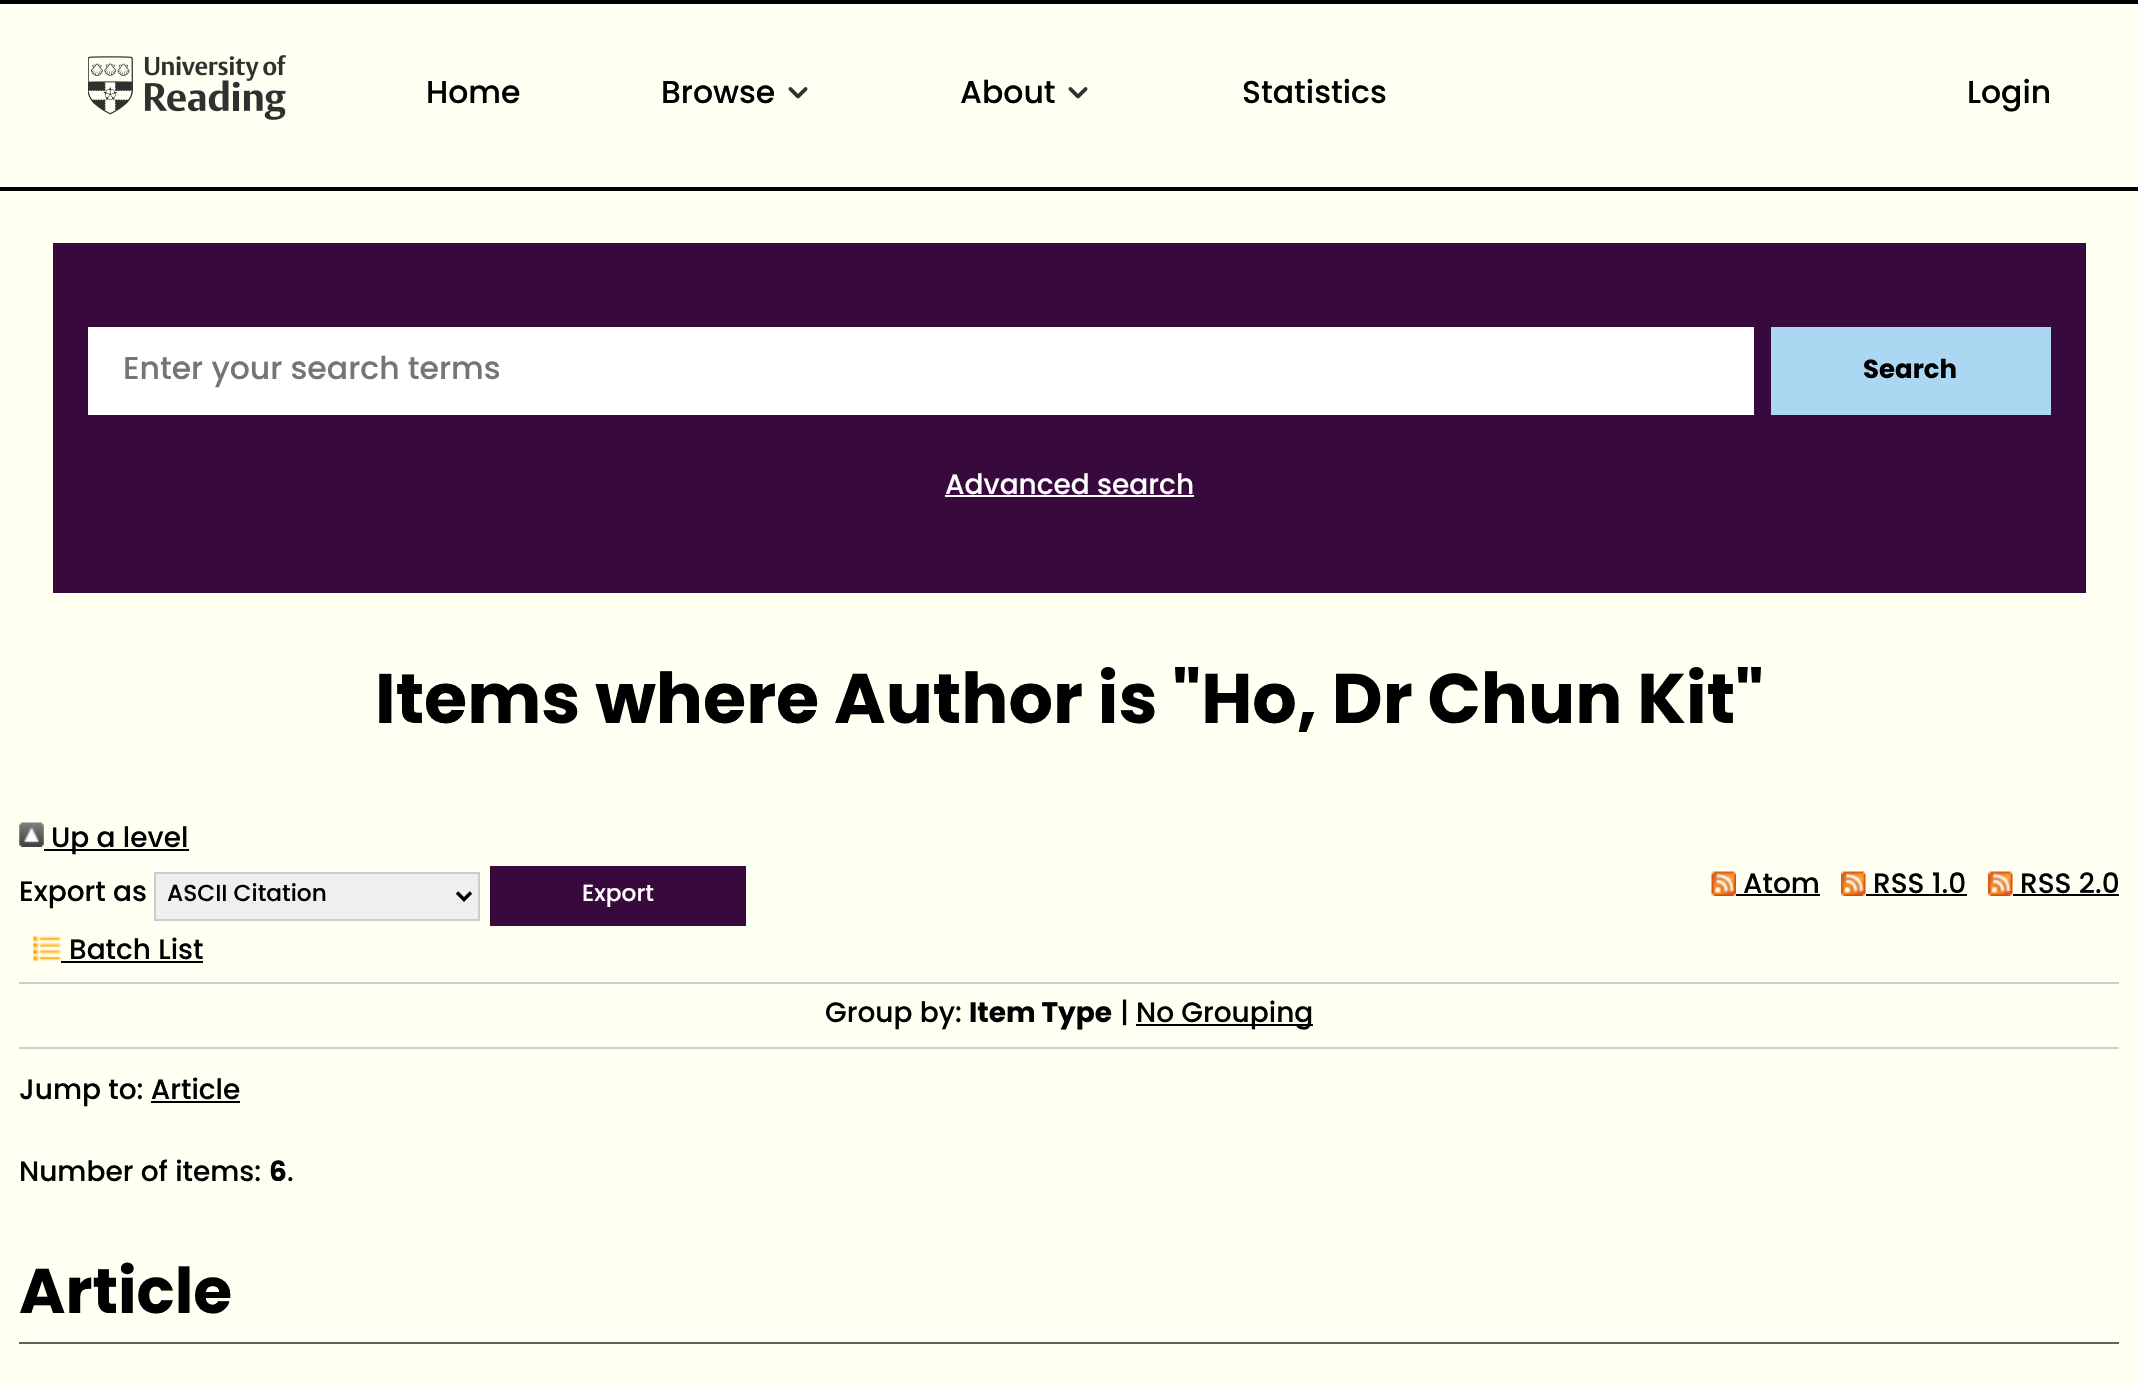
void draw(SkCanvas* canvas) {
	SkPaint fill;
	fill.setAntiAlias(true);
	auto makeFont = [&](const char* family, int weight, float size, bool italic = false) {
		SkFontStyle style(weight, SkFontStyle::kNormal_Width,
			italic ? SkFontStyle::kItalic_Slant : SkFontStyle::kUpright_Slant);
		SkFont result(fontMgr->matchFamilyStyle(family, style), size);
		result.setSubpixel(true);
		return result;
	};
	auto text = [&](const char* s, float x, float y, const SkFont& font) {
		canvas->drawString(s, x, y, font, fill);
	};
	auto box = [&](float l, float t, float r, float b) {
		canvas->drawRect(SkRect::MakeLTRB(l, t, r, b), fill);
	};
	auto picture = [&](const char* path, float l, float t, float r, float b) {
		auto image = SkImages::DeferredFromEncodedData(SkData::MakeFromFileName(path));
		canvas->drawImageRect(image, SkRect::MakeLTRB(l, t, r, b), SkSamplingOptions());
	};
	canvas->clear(0xFFFFFFF2);
	fill.setColor(0xFF000000);
	box(0, 0, 2138, 4);
	box(0, 187, 2138, 191);
	picture("image0.png", 88, 55, 286, 120);
	picture("image1.png", 788, 87, 808, 99);
	picture("image1.png", 1068, 87, 1088, 99);
	fill.setColor(0xFF37093D);
	box(53, 243, 2086, 593);
	fill.setColor(0xFFFFFFFF);
	box(88, 327, 1754, 415);
	fill.setColor(0xFFACD7F2);
	box(1771, 327, 2051, 415);
	fill.setColor(0xFFFFFFFF);
	box(945, 495, 1194, 497);
	picture("image2.png", 19, 822, 44, 847);
	fill.setColor(0xFF000000);
	box(44, 849, 189, 851);
	fill.setColor(0xFFEFEFEF);
	canvas->drawRect(SkRect::MakeLTRB(155, 873, 479, 920), fill);
	fill.setStyle(SkPaint::kStroke_Style);
	fill.setStrokeWidth(2);
	fill.setColor(0xFFCCCCCC);
	canvas->drawRect(SkRect::MakeLTRB(155, 873, 479, 920), fill);
	fill.setStrokeWidth(3.5f);
	fill.setColor(0xFF000000);
	canvas->drawPath(SkPathBuilder().moveTo(457, 892.5f).lineTo(464, 899.5f).lineTo(471, 892.5f).detach(), fill);
	fill.setStyle(SkPaint::kFill_Style);
	fill.setColor(0xFF37093D);
	box(490, 866, 746, 926);
	picture("image3.png", 1711, 871, 1736, 896);
	fill.setColor(0xFF000000);
	box(1736, 894, 1820, 896);
	picture("image4.png", 1841, 871, 1866, 896);
	box(1866, 894, 1967, 896);
	picture("image5.png", 1988, 871, 2013, 896);
	box(2013, 894, 2119, 896);
	picture("image6.png", 33, 935, 62, 962);
	box(61, 961, 203, 963);
	fill.setColor(0xFFCCCCCC);
	box(19, 982, 2119, 984);
	box(19, 1047, 2119, 1049);
	fill.setColor(0xFF000000);
	box(1136, 1024, 1313, 1026);
	box(151, 1101, 240, 1103);
	fill.setColor(0xFF606060);
	box(19, 1342, 2119, 1344);
	auto font1 = makeFont("Poppins", 500, 31.5f);
	fill.setColor(0xFF000000);
	text("Home", 426, 103, font1);
	text("Browse", 661, 103, font1);
	text("About", 960, 103, font1);
	text("Statistics", 1242, 103, font1);
	text("Login", 1967, 103, font1);
	fill.setColor(0xFF757575);
	text("Enter your search terms", 123, 379, font1);
	auto font2 = makeFont("Poppins", 700, 26);
	fill.setColor(0xFF000000);
	text("Search", 1863, 378, font2);
	auto font3 = makeFont("Poppins", 500, 28);
	fill.setColor(0xFFFFFFFF);
	text("Advanced search", 945, 494, font3);
	auto font4 = makeFont("Poppins", 700, 70);
	fill.setColor(0xFF000000);
	text("Items where Author is \"Ho, Dr Chun Kit\"", 375, 723, font4);
	text("Up a level", 51, 847, font3);
	text("Export as", 19, 901, font3);
	auto font5 = makeFont("Poppins", 500, 23.25f);
	text("ASCII Citation", 167, 901, font5);
	fill.setColor(0xFFFFFFFF);
	text("Export", 582, 901, font5);
	fill.setColor(0xFF000000);
	text("Atom", 1743, 893, font3);
	text("RSS 1.0", 1873, 893, font3);
	text("RSS 2.0", 2020, 893, font3);
	text("Batch List", 69, 959, font3);
	text("Group by:", 825, 1022, font3);
	auto font6 = makeFont("Poppins", 700, 28);
	text("Item Type", 969, 1022, font6);
	text("|", 1120, 1022, font3);
	text("No Grouping", 1136, 1022, font3);
	text("Jump to: Article", 19, 1099, font3);
	text("Number of items:", 19, 1181, font3);
	text("6", 269, 1181, font6);
	text(".", 287, 1181, font3);
	auto font7 = makeFont("Poppins", 700, 63);
	text("Article", 19, 1313, font7);
}
